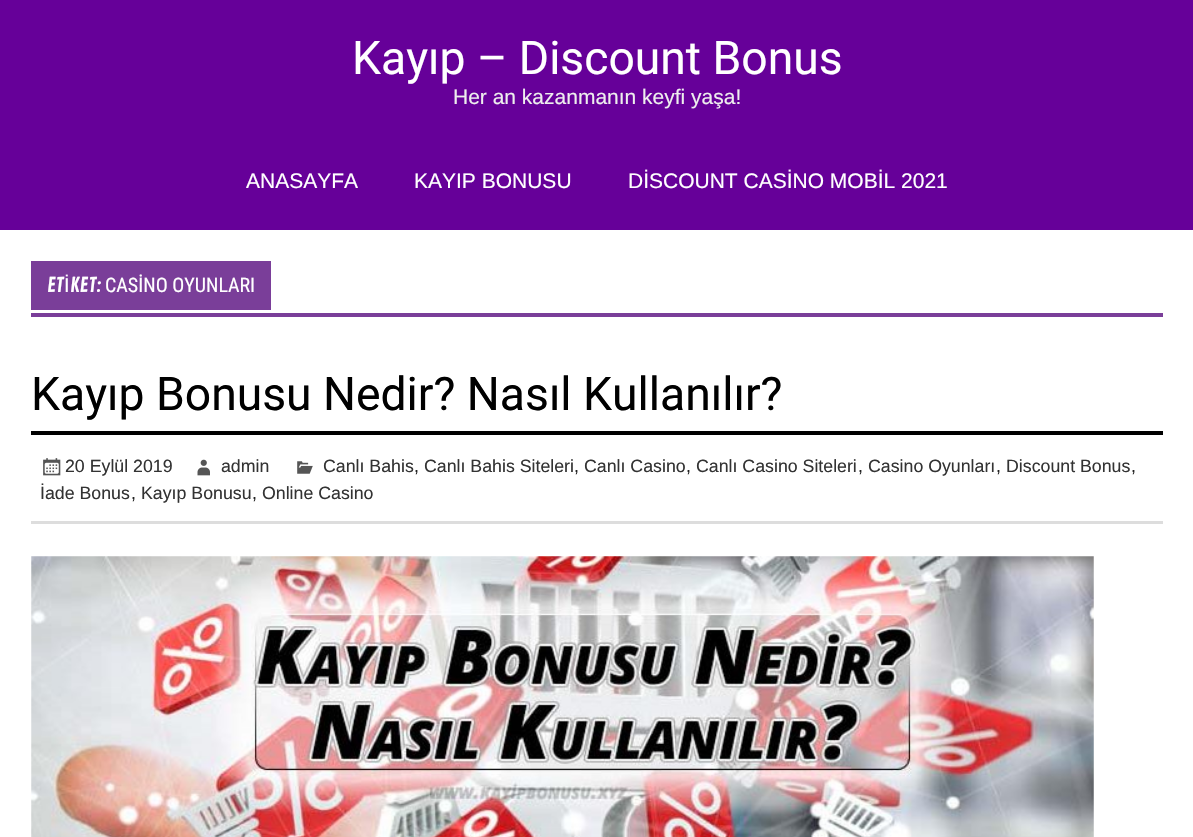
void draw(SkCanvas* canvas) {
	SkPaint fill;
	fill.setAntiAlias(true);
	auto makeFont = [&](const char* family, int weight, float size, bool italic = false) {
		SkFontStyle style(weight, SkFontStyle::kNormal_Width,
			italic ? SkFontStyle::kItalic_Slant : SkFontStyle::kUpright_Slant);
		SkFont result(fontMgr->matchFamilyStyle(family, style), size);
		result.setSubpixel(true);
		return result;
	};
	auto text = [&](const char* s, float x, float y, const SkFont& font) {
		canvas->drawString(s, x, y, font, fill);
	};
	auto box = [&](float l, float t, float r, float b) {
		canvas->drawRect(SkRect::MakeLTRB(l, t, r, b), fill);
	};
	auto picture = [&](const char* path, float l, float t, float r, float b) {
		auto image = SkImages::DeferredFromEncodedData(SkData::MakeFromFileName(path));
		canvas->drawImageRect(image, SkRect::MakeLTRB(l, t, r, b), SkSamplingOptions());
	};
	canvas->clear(0xFFFFFFFF);
	fill.setColor(0xFF660099);
	box(0, 0, 1193, 230);
	fill.setColor(0xFF7A3E99);
	box(31, 313, 1163, 317);
	box(31, 261, 271, 310);
	fill.setColor(0xFF000000);
	box(31, 431, 1163, 435);
	fill.setColor(0xFFDDDDDD);
	box(31, 521, 1163, 524);
	picture("image0.png", 297, 461, 313, 474);
	picture("image1.png", 43, 458, 61, 476);
	picture("image2.png", 197, 459, 210, 476);
	picture("image3.png", 31, 556, 1094, 837);
	auto font1 = makeFont("Roboto", 400, 46.25f);
	fill.setColor(0xFFFFFFFF);
	text("Kayıp – Discount Bonus", 352, 74, font1);
	auto font2 = makeFont("Liberation Sans", 400, 21);
	fill.setColor(0xFFEEEEEE);
	text("Her an kazanmanın keyfi yaşa!", 453, 104, font2);
	fill.setColor(0xFFFFFFFF);
	text("ANASAYFA", 246, 188, font2);
	text("KAYIP BONUSU", 414, 188, font2);
	text("DİSCOUNT CASİNO MOBİL 2021", 628, 188, font2);
	auto font3 = makeFont("Contrail One", 400, 20);
	text("ET", 47, 292, font3);
	auto font4 = makeFont("Liberation Sans", 400, 20);
	text("İ", 64, 292, font4);
	text("KET:", 70, 292, font3);
	auto font5 = makeFont("Roboto Condensed", 400, 20);
	text("CASİNO OYUNLARI", 105, 292, font5);
	fill.setColor(0xFF000000);
	text("Kayıp Bonusu Nedir? Nasıl Kullanılır?", 31, 410, font1);
	auto font6 = makeFont("Liberation Sans", 400, 17.75f);
	fill.setColor(0xFF333333);
	text("Canlı Bahis", 323, 472, font6);
	fill.setColor(0xFF222222);
	text(",", 414, 472, font6);
	fill.setColor(0xFF333333);
	text("Canlı Bahis Siteleri", 424, 472, font6);
	fill.setColor(0xFF222222);
	text(",", 574, 472, font6);
	fill.setColor(0xFF333333);
	text("Canlı Casino", 584, 472, font6);
	fill.setColor(0xFF222222);
	text(",", 686, 472, font6);
	fill.setColor(0xFF333333);
	text("Canlı Casino Siteleri", 696, 472, font6);
	fill.setColor(0xFF222222);
	text(",", 858, 472, font6);
	fill.setColor(0xFF333333);
	text("Casino Oyunları", 868, 472, font6);
	fill.setColor(0xFF222222);
	text(",", 996, 472, font6);
	fill.setColor(0xFF333333);
	text("Discount Bonus", 1006, 472, font6);
	fill.setColor(0xFF222222);
	text(",", 1131, 472, font6);
	fill.setColor(0xFF333333);
	text("İade Bonus", 40, 499, font6);
	fill.setColor(0xFF222222);
	text(",", 131, 499, font6);
	fill.setColor(0xFF333333);
	text("Kayıp Bonusu", 141, 499, font6);
	fill.setColor(0xFF222222);
	text(",", 252, 499, font6);
	fill.setColor(0xFF333333);
	text("Online Casino", 262, 499, font6);
	text("20 Eylül 2019", 65, 472, font6);
	text("admin", 221, 472, font6);
}
